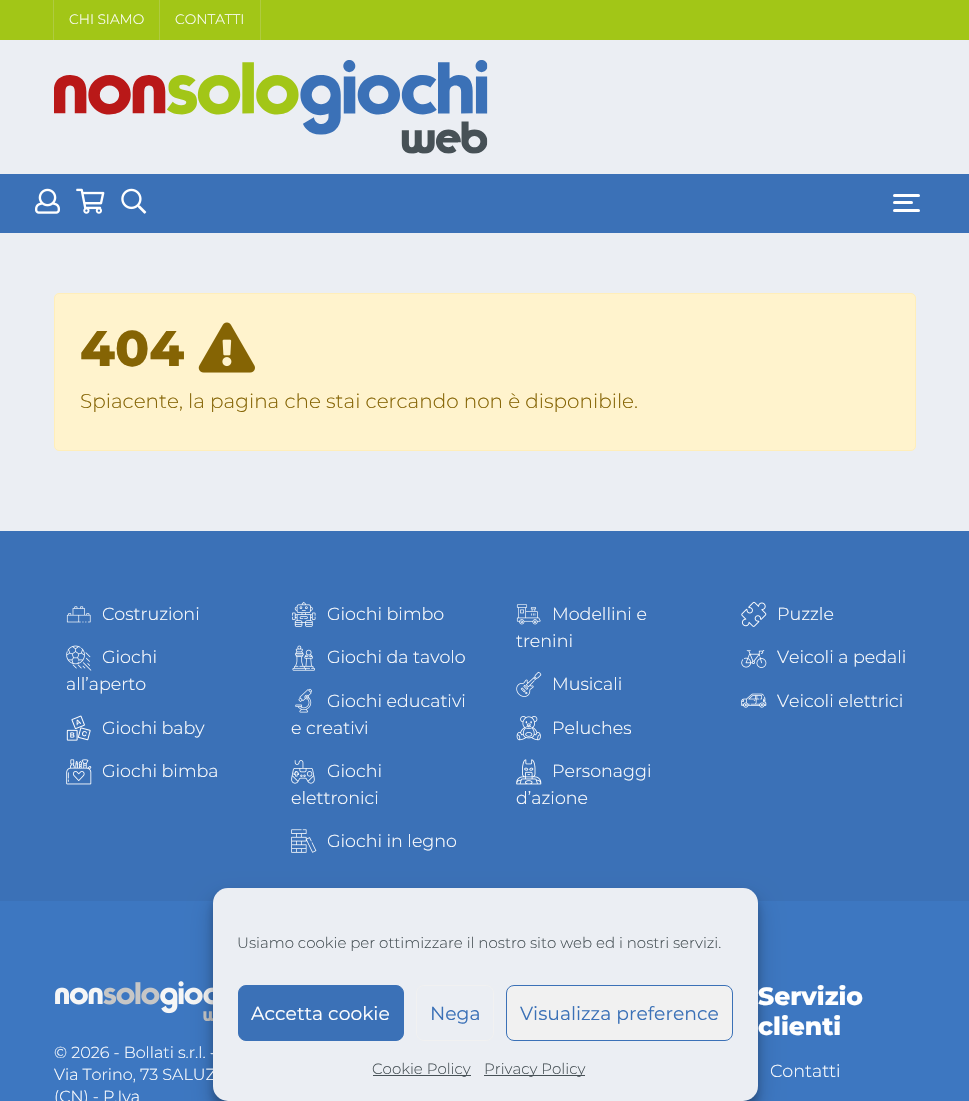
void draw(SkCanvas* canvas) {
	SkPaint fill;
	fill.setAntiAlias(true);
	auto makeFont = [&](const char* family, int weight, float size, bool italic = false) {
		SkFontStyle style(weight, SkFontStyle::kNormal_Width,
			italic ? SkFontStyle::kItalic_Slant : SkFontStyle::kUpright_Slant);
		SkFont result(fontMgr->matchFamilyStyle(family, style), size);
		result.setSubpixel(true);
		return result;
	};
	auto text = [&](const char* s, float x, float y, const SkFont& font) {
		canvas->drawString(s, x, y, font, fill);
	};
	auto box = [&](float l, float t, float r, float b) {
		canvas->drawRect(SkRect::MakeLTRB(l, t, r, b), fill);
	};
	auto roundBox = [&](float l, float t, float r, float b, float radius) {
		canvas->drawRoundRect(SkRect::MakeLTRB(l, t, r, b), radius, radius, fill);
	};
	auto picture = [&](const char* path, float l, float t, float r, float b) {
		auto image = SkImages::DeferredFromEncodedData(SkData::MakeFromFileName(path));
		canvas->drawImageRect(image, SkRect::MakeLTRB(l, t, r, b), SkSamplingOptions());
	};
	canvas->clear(0xFFEBEEF3);
	fill.setColor(0xFFA2C617);
	box(0, 0, 969, 40);
	fill.setColor(0xFFAFCB41);
	box(159, 0, 160, 40);
	box(53, 0, 54, 40);
	box(260, 0, 261, 40);
	picture("image0.png", 54, 60, 488, 154);
	fill.setColor(0xFF3B71B7);
	box(0, 174, 969, 233);
	picture("image1.png", 35, 188, 60, 214);
	picture("image2.png", 76, 188, 105, 214);
	picture("image3.png", 121, 188, 147, 214);
	fill.setColor(0xFFFFFFFF);
	roundBox(893, 194, 920, 197, 1.5f);
	roundBox(893, 201, 913, 204, 1.5f);
	roundBox(893, 209, 920, 212, 1.5f);
	fill.setColor(0xFFFFF3CD);
	canvas->drawRoundRect(SkRect::MakeLTRB(54.5f, 293.5f, 915.5f, 450.5f), 4.5f, 4.5f, fill);
	fill.setStyle(SkPaint::kStroke_Style);
	fill.setStrokeWidth(1);
	fill.setColor(0xFFFFEEBA);
	canvas->drawRoundRect(SkRect::MakeLTRB(54.5f, 293.5f, 915.5f, 450.5f), 4.5f, 4.5f, fill);
	picture("image4.png", 198, 322, 255, 373);
	fill.setStyle(SkPaint::kFill_Style);
	fill.setColor(0xFF3B71B7);
	box(0, 531, 969, 901);
	picture("image5.png", 66, 606, 91, 623);
	picture("image6.png", 66, 645, 92, 671);
	picture("image7.png", 66, 715, 91, 741);
	picture("image8.png", 66, 759, 92, 785);
	picture("image9.png", 292, 601, 316, 627);
	picture("image10.png", 292, 645, 315, 671);
	picture("image11.png", 295, 688, 312, 713);
	picture("image12.png", 291, 760, 315, 784);
	picture("image13.png", 291, 829, 317, 853);
	picture("image14.png", 516, 604, 541, 625);
	picture("image15.png", 516, 671, 542, 697);
	picture("image16.png", 516, 716, 541, 741);
	picture("image17.png", 516, 759, 542, 785);
	picture("image18.png", 741, 601, 767, 627);
	picture("image19.png", 741, 650, 767, 668);
	picture("image20.png", 741, 693, 767, 708);
	fill.setColor(0xFF3D77C1);
	box(0, 901, 969, 1101);
	picture("image21.png", 55, 981, 213, 1021);
	fill.setColor(0x3B000000);
	fill.setMaskFilter(SkMaskFilter::MakeBlur(kNormal_SkBlurStyle, 4));
	canvas->drawRoundRect(SkRect::MakeLTRB(213, 895, 758, 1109), 15, 15, fill);
	fill.setMaskFilter(nullptr);
	fill.setColor(0x30000000);
	fill.setMaskFilter(SkMaskFilter::MakeBlur(kNormal_SkBlurStyle, 12.5f));
	canvas->drawRoundRect(SkRect::MakeLTRB(213, 900, 758, 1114), 15, 15, fill);
	fill.setMaskFilter(nullptr);
	auto font1 = makeFont("Montserrat", 300, 13.75f);
	fill.setColor(0xFFFFFFFF);
	text("CHI SIAMO", 69, 24, font1);
	text("CONTATTI", 175, 24, font1);
	auto font2 = makeFont("Montserrat", 800, 50);
	fill.setColor(0xFF856404);
	text("404", 80, 366, font2);
	auto font3 = makeFont("Montserrat", 300, 20);
	text("Spiacente, la pagina che stai cercando non è disponibile.", 80, 408, font3);
	auto font4 = makeFont("Montserrat", 300, 17.5f);
	fill.setColor(0xFFFFFFFF);
	text("Costruzioni", 102, 620, font4);
	text("Giochi", 102, 663, font4);
	text("all’aperto", 66, 690, font4);
	text("Giochi baby", 102, 734, font4);
	text("Giochi bimba", 102, 777, font4);
	text("Giochi bimbo", 327, 620, font4);
	text("Giochi da tavolo", 327, 663, font4);
	text("Giochi educativi", 327, 707, font4);
	text("e creativi", 291, 734, font4);
	text("Giochi", 327, 777, font4);
	text("elettronici", 291, 804, font4);
	text("Giochi in legno", 327, 847, font4);
	text("Modellini e", 552, 620, font4);
	text("trenini", 516, 647, font4);
	text("Musicali", 552, 690, font4);
	text("Peluches", 552, 734, font4);
	text("Personaggi", 552, 777, font4);
	text("d’azione", 516, 804, font4);
	text("Puzzle", 777, 620, font4);
	text("Veicoli a pedali", 777, 663, font4);
	text("Veicoli elettrici", 777, 707, font4);
	auto font5 = makeFont("Montserrat", 300, 16);
	text("© 2026 - Bollati s.r.l. -", 54, 1058, font5);
	text("Via Torino, 73 SALUZ", 54, 1080, font5);
	text("(CN) - P.Iva", 54, 1102, font5);
	auto font6 = makeFont("Montserrat", 800, 25);
	text("Servizio", 758, 1005, font6);
	text("clienti", 758, 1035, font6);
	text("Contatti", 770, 1077, font4);
	fill.setColor(0xFFEBEEF3);
	roundBox(213, 888, 758, 1101, 15);
	auto font7 = makeFont("Montserrat", 300, 15);
	fill.setColor(0xFF475156);
	text("Usiamo cookie per ottimizzare il nostro sito web ed i nostri servizi.", 237, 948, font7);
	fill.setColor(0xFF3B71B7);
	canvas->drawRoundRect(SkRect::MakeLTRB(238.5f, 985.5f, 403.5f, 1040.5f), 7.5f, 7.5f, fill);
	fill.setStyle(SkPaint::kStroke_Style);
	canvas->drawRoundRect(SkRect::MakeLTRB(238.5f, 985.5f, 403.5f, 1040.5f), 7.5f, 7.5f, fill);
	auto font8 = makeFont("Montserrat", 400, 18.75f);
	fill.setStyle(SkPaint::kFill_Style);
	fill.setColor(0xFFFFFFFF);
	text("Accetta cookie", 251, 1020, font8);
	fill.setStyle(SkPaint::kStroke_Style);
	fill.setColor(0xFFF1F1F1);
	canvas->drawRoundRect(SkRect::MakeLTRB(416.5f, 985.5f, 493.5f, 1040.5f), 7.5f, 7.5f, fill);
	fill.setStyle(SkPaint::kFill_Style);
	fill.setColor(0xFF3B71B7);
	text("Nega", 430, 1020, font8);
	fill.setColor(0xFFF1F1F1);
	canvas->drawRoundRect(SkRect::MakeLTRB(506.5f, 985.5f, 732.5f, 1040.5f), 7.5f, 7.5f, fill);
	fill.setStyle(SkPaint::kStroke_Style);
	fill.setColor(0xFF3B71B7);
	canvas->drawRoundRect(SkRect::MakeLTRB(506.5f, 985.5f, 732.5f, 1040.5f), 7.5f, 7.5f, fill);
	fill.setStyle(SkPaint::kFill_Style);
	text("Visualizza preference", 520, 1020, font8);
	fill.setColor(0xFF475156);
	box(373, 1075, 471, 1076);
	text("Cookie Policy", 372, 1074, font7);
	box(484, 1075, 585, 1076);
	text("Privacy Policy", 484, 1074, font7);
}
